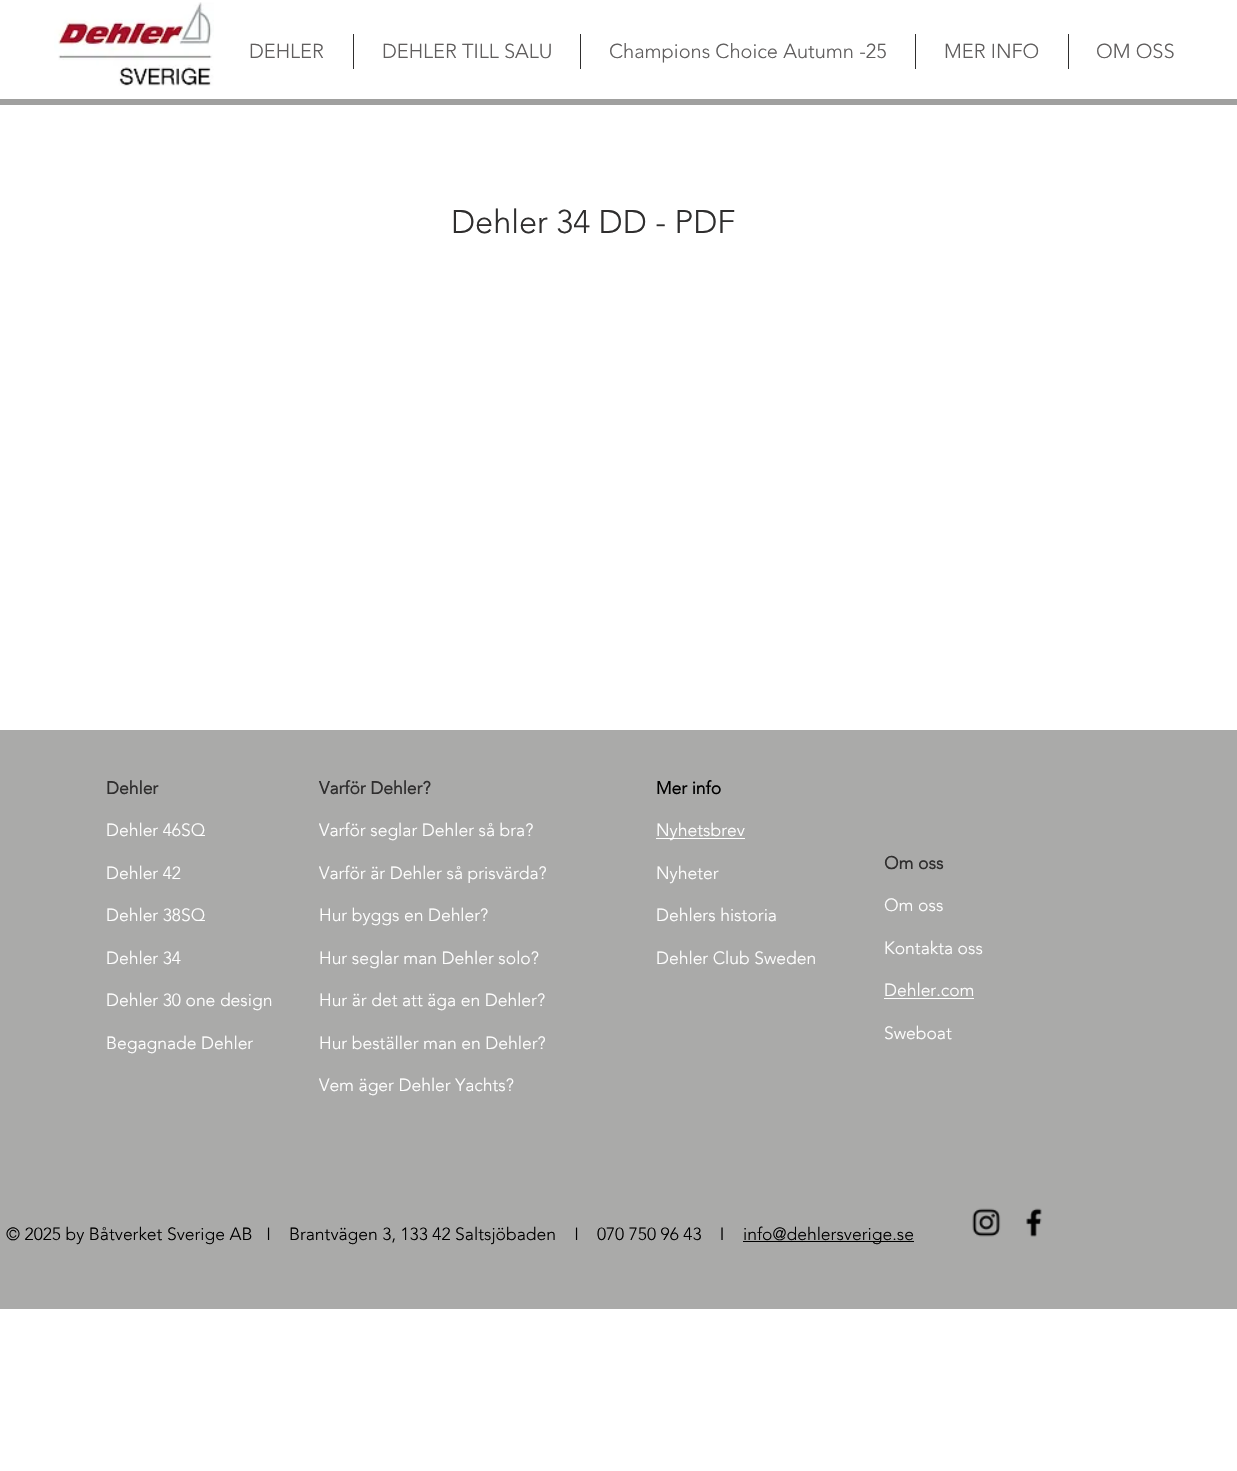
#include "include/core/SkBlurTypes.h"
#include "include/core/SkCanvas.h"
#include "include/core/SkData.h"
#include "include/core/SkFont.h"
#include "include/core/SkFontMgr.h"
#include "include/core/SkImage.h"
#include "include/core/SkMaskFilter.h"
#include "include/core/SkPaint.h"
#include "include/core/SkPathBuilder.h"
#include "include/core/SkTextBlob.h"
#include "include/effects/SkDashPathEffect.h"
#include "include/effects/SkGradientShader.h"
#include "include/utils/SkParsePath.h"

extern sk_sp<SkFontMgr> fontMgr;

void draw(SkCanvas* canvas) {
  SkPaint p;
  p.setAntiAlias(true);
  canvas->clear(SK_ColorWHITE);
  canvas->drawImageRect(SkImages::DeferredFromEncodedData(SkData::MakeFromFileName("images/1.png")), SkRect::MakeLTRB(54, 2, 214, 86), SkSamplingOptions());
  p.setColor(SkColorSetRGB(47, 46, 46));
  canvas->drawRect(SkRect::MakeLTRB(353, 34, 354, 69), p);
  canvas->drawRect(SkRect::MakeLTRB(580, 34, 581, 69), p);
  canvas->drawRect(SkRect::MakeLTRB(915, 34, 916, 69), p);
  canvas->drawRect(SkRect::MakeLTRB(1068, 34, 1069, 69), p);
  p.setColor(SkColorSetRGB(160, 160, 159));
  canvas->drawRect(SkRect::MakeLTRB(0, 99, 1237, 105), p);
  p.setColor(SkColorSetRGB(170, 170, 169));
  canvas->drawRect(SkRect::MakeLTRB(0, 730, 1237, 1309), p);
  p.setColor(SK_ColorWHITE);
  canvas->drawRect(SkRect::MakeLTRB(656, 838, 745, 839), p);
  canvas->drawRect(SkRect::MakeLTRB(884, 998, 974, 999), p);
  p.setColor(SK_ColorBLACK);
  canvas->drawRect(SkRect::MakeLTRB(743, 1241, 914, 1242), p);
  canvas->drawImageRect(SkImages::DeferredFromEncodedData(SkData::MakeFromFileName("images/2.png")), SkRect::MakeLTRB(972, 1208, 1001, 1237), SkSamplingOptions());
  canvas->drawImageRect(SkImages::DeferredFromEncodedData(SkData::MakeFromFileName("images/3.png")), SkRect::MakeLTRB(1026, 1208, 1042, 1237), SkSamplingOptions());
  SkFont font1(fontMgr->matchFamilyStyle("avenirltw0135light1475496", SkFontStyle(300, SkFontStyle::kNormal_Width, SkFontStyle::kUpright_Slant)), 20);
  font1.setSubpixel(true);
  p.setColor(SkColorSetRGB(96, 94, 94));
  canvas->drawString("DEHLER", 249, 58, font1, p);
  canvas->drawString("DEHLER TILL SALU", 382, 58, font1, p);
  canvas->drawString("Champions Choice Autumn -25", 609, 58, font1, p);
  canvas->drawString("MER INFO", 944, 58, font1, p);
  canvas->drawString("OM OSS", 1096, 58, font1, p);
  SkFont font2(fontMgr->matchFamilyStyle("avenirltw0135light1475496", SkFontStyle(300, SkFontStyle::kNormal_Width, SkFontStyle::kUpright_Slant)), 32.5f);
  font2.setSubpixel(true);
  p.setColor(SkColorSetRGB(47, 46, 46));
  canvas->drawString("Dehler 34 DD - PDF", 451, 233, font2, p);
  SkFont font3(fontMgr->matchFamilyStyle("avenirltw0135light1475496", SkFontStyle::Bold()), 17.5f);
  font3.setSubpixel(true);
  canvas->drawString("Dehler", 106, 794, font3, p);
  SkFont font4(fontMgr->matchFamilyStyle("avenirltw0135light1475496", SkFontStyle(300, SkFontStyle::kNormal_Width, SkFontStyle::kUpright_Slant)), 17.5f);
  font4.setSubpixel(true);
  p.setColor(SK_ColorWHITE);
  canvas->drawString("Dehler 46SQ", 106, 836, font4, p);
  canvas->drawString("Dehler 42", 106, 879, font4, p);
  canvas->drawString("Dehler 38SQ", 106, 921, font4, p);
  canvas->drawString("Dehler 34", 106, 964, font4, p);
  canvas->drawString("Dehler 30 one design", 106, 1006, font4, p);
  canvas->drawString("Begagnade Dehler", 106, 1049, font4, p);
  p.setColor(SkColorSetRGB(47, 46, 46));
  canvas->drawString("Varför Dehler?", 319, 794, font3, p);
  p.setColor(SK_ColorWHITE);
  canvas->drawString("Varför seglar Dehler så bra?", 319, 836, font4, p);
  canvas->drawString("Varför är Dehler så prisvärda?", 319, 879, font4, p);
  canvas->drawString("Hur byggs en Dehler?", 319, 921, font4, p);
  canvas->drawString("Hur seglar man Dehler solo?", 319, 964, font4, p);
  canvas->drawString("Hur är det att äga en Dehler?", 319, 1006, font4, p);
  canvas->drawString("Hur beställer man en Dehler?", 319, 1049, font4, p);
  canvas->drawString("Vem äger Dehler Yachts?", 319, 1091, font4, p);
  p.setColor(SK_ColorBLACK);
  canvas->drawString("Mer info", 656, 794, font3, p);
  p.setColor(SK_ColorWHITE);
  canvas->drawString("Nyhetsbrev", 656, 836, font4, p);
  canvas->drawString("Nyheter", 656, 879, font4, p);
  canvas->drawString("Dehlers historia", 656, 921, font4, p);
  canvas->drawString("Dehler Club Sweden", 656, 964, font4, p);
  p.setColor(SkColorSetRGB(47, 46, 46));
  canvas->drawString("Om oss", 884, 869, font3, p);
  p.setColor(SK_ColorWHITE);
  canvas->drawString("Om oss", 884, 911, font4, p);
  canvas->drawString("Kontakta oss", 884, 954, font4, p);
  canvas->drawString("Dehler.com", 884, 996, font4, p);
  canvas->drawString("Sweboat", 884, 1039, font4, p);
  p.setColor(SK_ColorBLACK);
  canvas->drawString("© 2025 by Båtverket Sverige AB   I    Brantvägen 3, 133 42 Saltsjöbaden    I    070 750 96 43    I", 6, 1240, font4, p);
  canvas->drawString("info@dehlersverige.se", 743, 1240, font4, p);
}
